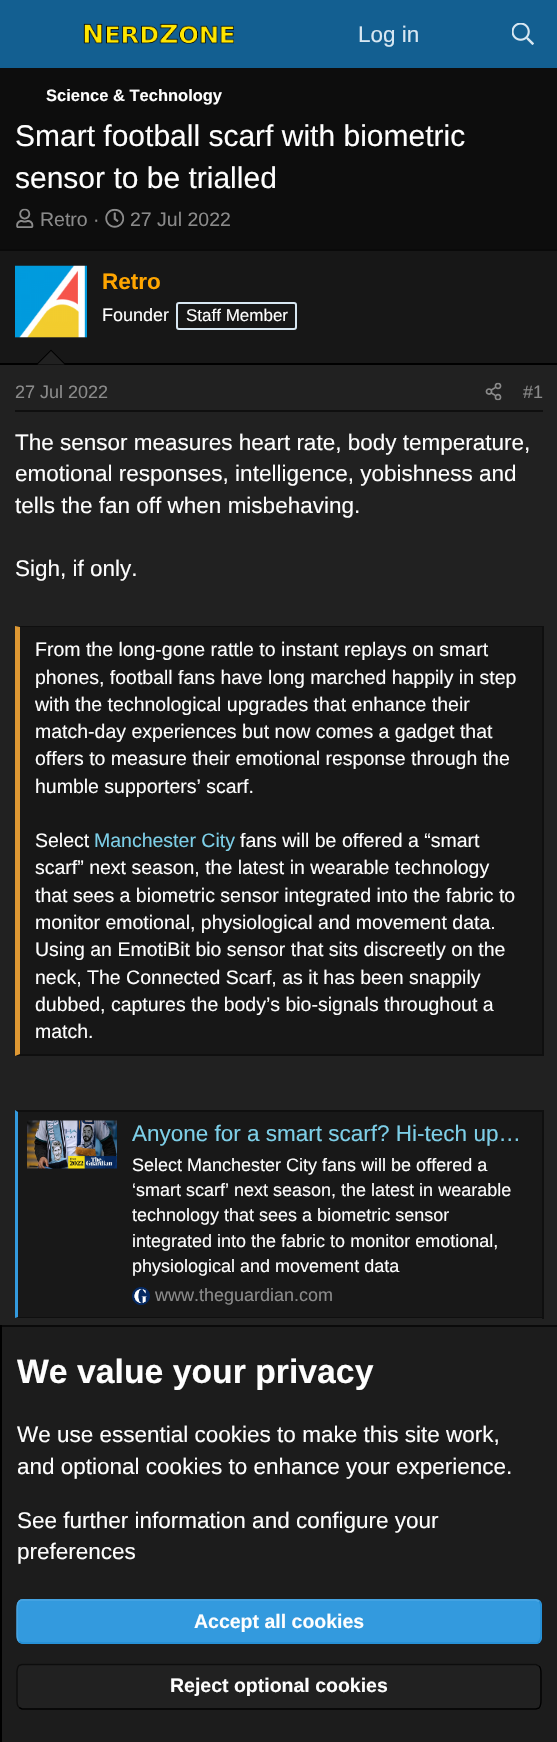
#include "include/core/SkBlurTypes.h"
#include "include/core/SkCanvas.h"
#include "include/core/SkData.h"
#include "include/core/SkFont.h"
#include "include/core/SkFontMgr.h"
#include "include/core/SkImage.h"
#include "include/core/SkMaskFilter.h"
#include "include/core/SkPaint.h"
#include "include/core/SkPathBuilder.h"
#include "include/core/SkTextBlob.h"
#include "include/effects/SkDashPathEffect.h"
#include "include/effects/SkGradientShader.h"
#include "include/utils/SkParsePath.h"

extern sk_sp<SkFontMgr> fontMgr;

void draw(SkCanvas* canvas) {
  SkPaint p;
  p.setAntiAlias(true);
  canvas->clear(SkColorSetRGB(13, 13, 13));
  p.setColor(SkColorSetRGB(19, 95, 145));
  canvas->drawRect(SkRect::MakeLTRB(0, 0, 557, 68), p);
  canvas->drawImageRect(SkImages::DeferredFromEncodedData(SkData::MakeFromFileName("images/1.png")), SkRect::MakeLTRB(83, 23, 234, 44), SkSamplingOptions());
  canvas->drawImageRect(SkImages::DeferredFromEncodedData(SkData::MakeFromFileName("images/2.png")), SkRect::MakeLTRB(512, 23, 534, 45), SkSamplingOptions());
  canvas->drawImageRect(SkImages::DeferredFromEncodedData(SkData::MakeFromFileName("images/3.png")), SkRect::MakeLTRB(16, 208, 34, 228), SkSamplingOptions());
  canvas->drawImageRect(SkImages::DeferredFromEncodedData(SkData::MakeFromFileName("images/4.png")), SkRect::MakeLTRB(105, 208, 125, 228), SkSamplingOptions());
  p.setColor(SkColorSetRGB(33, 33, 33));
  canvas->drawRect(SkRect::MakeLTRB(0, 365, 557, 1325), p);
  p.setColor(SkColorSetRGB(10, 10, 10));
  canvas->drawRect(SkRect::MakeLTRB(0, 249, 557, 251), p);
  p.setColor(SkColorSetRGB(23, 23, 23));
  canvas->drawRect(SkRect::MakeLTRB(0, 251, 557, 363), p);
  p.setColor(SK_ColorBLACK);
  canvas->drawRect(SkRect::MakeLTRB(0, 363, 557, 365), p);
  p.setColor(SkColorSetRGB(33, 33, 33));
  canvas->drawRect(SkRect::MakeLTRB(15, 337, 87, 338), p);
  canvas->drawImageRect(SkImages::DeferredFromEncodedData(SkData::MakeFromFileName("images/5.png")), SkRect::MakeLTRB(15, 265, 87, 338), SkSamplingOptions());
  p.setStyle(SkPaint::kStroke_Style);
  p.setStrokeWidth(2);
  p.setColor(SkColorSetRGB(216, 231, 242));
  canvas->drawRoundRect(SkRect::MakeLTRB(177, 303, 296, 329), 2, 2, p);
  p.setStyle(SkPaint::kFill_Style);
  p.setColor(SK_ColorBLACK);
  canvas->drawPath(SkPathBuilder().moveTo(66, 364.5f).lineTo(36, 364.5f).lineTo(51, 349.5f).close().detach(), p);
  p.setColor(SkColorSetRGB(33, 33, 33));
  canvas->drawPath(SkPathBuilder().moveTo(64.5f, 364.5f).lineTo(37.5f, 364.5f).lineTo(51, 351).close().detach(), p);
  p.setColor(SkColorSetRGB(15, 15, 15));
  canvas->drawRect(SkRect::MakeLTRB(15, 410, 543, 412), p);
  canvas->drawImageRect(SkImages::DeferredFromEncodedData(SkData::MakeFromFileName("images/6.png")), SkRect::MakeLTRB(485, 382, 502, 401), SkSamplingOptions());
  p.setColor(SkColorSetRGB(23, 23, 23));
  canvas->drawRect(SkRect::MakeLTRB(20, 627, 542, 1054), p);
  p.setColor(SkColorSetRGB(15, 15, 15));
  canvas->drawPath(SkPathBuilder().moveTo(15, 626).lineTo(543, 626).lineTo(542, 627).lineTo(20, 627).close().detach(), p);
  canvas->drawRect(SkRect::MakeLTRB(542, 626, 544, 1056), p);
  canvas->drawPath(SkPathBuilder().moveTo(543, 1056).lineTo(15, 1056).lineTo(20, 1054).lineTo(542, 1054).close().detach(), p);
  p.setColor(SkColorSetRGB(222, 152, 51));
  canvas->drawPath(SkPathBuilder().moveTo(15, 1056).lineTo(15, 626).lineTo(20, 627).lineTo(20, 1054).close().detach(), p);
  p.setColor(SkColorSetRGB(24, 24, 24));
  canvas->drawRect(SkRect::MakeLTRB(18, 1112, 542, 1317), p);
  p.setColor(SkColorSetRGB(15, 15, 15));
  canvas->drawPath(SkPathBuilder().moveTo(15, 1110).lineTo(543, 1110).lineTo(542, 1112).lineTo(18, 1112).close().detach(), p);
  canvas->drawRect(SkRect::MakeLTRB(542, 1110, 544, 1319), p);
  canvas->drawPath(SkPathBuilder().moveTo(543, 1318).lineTo(15, 1318).lineTo(18, 1317).lineTo(542, 1317).close().detach(), p);
  p.setColor(SkColorSetRGB(51, 154, 222));
  canvas->drawPath(SkPathBuilder().moveTo(15, 1318).lineTo(15, 1110).lineTo(18, 1112).lineTo(18, 1317).close().detach(), p);
  canvas->drawImageRect(SkImages::DeferredFromEncodedData(SkData::MakeFromFileName("images/7.png")), SkRect::MakeLTRB(27, 1120, 117, 1169), SkSamplingOptions());
  canvas->drawImageRect(SkImages::DeferredFromEncodedData(SkData::MakeFromFileName("images/8.png")), SkRect::MakeLTRB(132, 1287, 150, 1305), SkSamplingOptions());
  p.setColor(SkColorSetRGB(28, 28, 28));
  canvas->drawRect(SkRect::MakeLTRB(2, 1327, 557, 1742), p);
  p.setColor(SkColorSetRGB(10, 10, 10));
  canvas->drawRect(SkRect::MakeLTRB(0, 1325, 557, 1327), p);
  p.setColor(SK_ColorBLACK);
  canvas->drawRect(SkRect::MakeLTRB(0, 1325, 2, 1742), p);
  p.setColor(SkColorSetRGB(51, 154, 222));
  canvas->drawRoundRect(SkRect::MakeLTRB(17, 1599, 542, 1644), 6, 6, p);
  p.setStyle(SkPaint::kStroke_Style);
  p.setStrokeWidth(1.5f);
  p.setColor(SkColorSetRGB(34, 142, 213));
  canvas->drawPath(SkPathBuilder().moveTo(539, 1601.5f).cubicTo(541.5f, 1603.5f, 541, 1607.5f, 541, 1610.5f).lineTo(541, 1632.5f).cubicTo(541, 1636, 541.5f, 1641.5f, 537, 1643).lineTo(22, 1643).lineTo(19, 1641.5f).detach(), p);
  p.setColor(SkColorSetRGB(73, 165, 226));
  canvas->drawPath(SkPathBuilder().moveTo(19, 1641.5f).cubicTo(16.5f, 1639.5f, 17, 1635.5f, 17, 1632.5f).lineTo(17, 1610.5f).cubicTo(17, 1607, 16.5f, 1601.5f, 21, 1600).lineTo(536, 1600).lineTo(539, 1601.5f).detach(), p);
  p.setStyle(SkPaint::kFill_Style);
  p.setColor(SkColorSetRGB(33, 33, 33));
  canvas->drawRoundRect(SkRect::MakeLTRB(17, 1664, 542, 1710), 6, 6, p);
  p.setStyle(SkPaint::kStroke_Style);
  p.setColor(SK_ColorBLACK);
  canvas->drawPath(SkPathBuilder().moveTo(539, 1666).cubicTo(541.5f, 1668, 541, 1672.5f, 541, 1675).lineTo(541, 1698).cubicTo(541, 1701.5f, 541.5f, 1705.5f, 539, 1708).lineTo(536, 1709).lineTo(22, 1709).lineTo(19, 1707.5f).detach(), p);
  p.setColor(SkColorSetRGB(13, 13, 13));
  canvas->drawPath(SkPathBuilder().moveTo(19, 1707.5f).cubicTo(16.5f, 1705.5f, 17, 1701, 17, 1698).lineTo(17, 1675).cubicTo(17, 1672, 16.5f, 1668, 19, 1665.5f).lineTo(22, 1664.5f).lineTo(536, 1664.5f).lineTo(539, 1666).detach(), p);
  SkFont font1(fontMgr->matchFamilyStyle("Liberation Sans", SkFontStyle::Normal()), 22.5f);
  font1.setSubpixel(true);
  p.setStyle(SkPaint::kFill_Style);
  p.setColor(SkColorSetRGB(216, 231, 242));
  canvas->drawString("Log in", 358, 42, font1, p);
  SkFont font2(fontMgr->matchFamilyStyle("Liberation Sans", SkFontStyle::Bold()), 16.5f);
  font2.setSubpixel(true);
  p.setColor(SkColorSetRGB(254, 254, 254));
  canvas->drawString("Science & Technology", 46, 101, font2, p);
  SkFont font3(fontMgr->matchFamilyStyle("Liberation Sans", SkFontStyle::Normal()), 30);
  font3.setSubpixel(true);
  canvas->drawString("Smart football scarf with biometric", 15, 146, font3, p);
  canvas->drawString("sensor to be trialled", 15, 188, font3, p);
  SkFont font4(fontMgr->matchFamilyStyle("Liberation Sans", SkFontStyle::Normal()), 19.5f);
  font4.setSubpixel(true);
  p.setColor(SkColorSetRGB(138, 138, 138));
  canvas->drawString("Retro ·", 40, 226, font4, p);
  canvas->drawString("27 Jul 2022", 130, 226, font4, p);
  SkFont font5(fontMgr->matchFamilyStyle("Liberation Sans", SkFontStyle::Bold()), 22.5f);
  font5.setSubpixel(true);
  p.setColor(SkColorSetRGB(255, 165, 0));
  canvas->drawString("Retro", 102, 289, font5, p);
  SkFont font6(fontMgr->matchFamilyStyle("Liberation Sans", SkFontStyle::Normal()), 18);
  font6.setSubpixel(true);
  p.setColor(SkColorSetRGB(254, 254, 254));
  canvas->drawString("Founder", 102, 321, font6, p);
  SkFont font7(fontMgr->matchFamilyStyle("Liberation Sans", SkFontStyle::Normal()), 17);
  font7.setSubpixel(true);
  canvas->drawString("Staff Member", 186, 321, font7, p);
  p.setColor(SkColorSetRGB(138, 138, 138));
  canvas->drawString("27 Jul 2022", 15, 398, font6, p);
  canvas->drawString("#1", 523, 398, font6, p);
  p.setColor(SkColorSetRGB(254, 254, 254));
  canvas->drawString("The sensor measures heart rate, body temperature,", 15, 450, font1, p);
  canvas->drawString("emotional responses, intelligence, yobishness and", 15, 481, font1, p);
  canvas->drawString("tells the fan off when misbehaving.", 15, 513, font1, p);
  canvas->drawString("Sigh, if only.", 15, 576, font1, p);
  canvas->drawString("From the long-gone rattle to instant replays on smart", 35, 656, font4, p);
  canvas->drawString("phones, football fans have long marched happily in step", 35, 684, font4, p);
  canvas->drawString("with the technological upgrades that enhance their", 35, 711, font4, p);
  canvas->drawString("match-day experiences but now comes a gadget that", 35, 738, font4, p);
  canvas->drawString("offers to measure their emotional response through the", 35, 765, font4, p);
  canvas->drawString("humble supporters’ scarf.", 35, 793, font4, p);
  canvas->drawString("Select", 35, 847, font4, p);
  p.setColor(SkColorSetRGB(125, 207, 232));
  canvas->drawString("Manchester City", 94, 847, font4, p);
  p.setColor(SkColorSetRGB(254, 254, 254));
  canvas->drawString("fans will be offered a “smart", 240, 847, font4, p);
  canvas->drawString("scarf” next season, the latest in wearable technology", 35, 874, font4, p);
  canvas->drawString("that sees a biometric sensor integrated into the fabric to", 35, 902, font4, p);
  canvas->drawString("monitor emotional, physiological and movement data.", 35, 929, font4, p);
  canvas->drawString("Using an EmotiBit bio sensor that sits discreetly on the", 35, 956, font4, p);
  canvas->drawString("neck, The Connected Scarf, as it has been snappily", 35, 984, font4, p);
  canvas->drawString("dubbed, captures the body’s bio-signals throughout a", 35, 1011, font4, p);
  canvas->drawString("match.", 35, 1038, font4, p);
  p.setColor(SkColorSetRGB(125, 207, 232));
  canvas->drawString("Anyone for a smart scarf? Hi-tech up…", 132, 1141, font1, p);
  p.setColor(SkColorSetRGB(254, 254, 254));
  canvas->drawString("Select Manchester City fans will be offered a", 132, 1171, font6, p);
  canvas->drawString("‘smart scarf’ next season, the latest in wearable", 132, 1196, font6, p);
  canvas->drawString("technology that sees a biometric sensor", 132, 1221, font6, p);
  canvas->drawString("integrated into the fabric to monitor emotional,", 132, 1247, font6, p);
  canvas->drawString("physiological and movement data", 132, 1272, font6, p);
  p.setColor(SkColorSetRGB(138, 138, 138));
  canvas->drawString("www.theguardian.com", 155, 1301, font6, p);
  SkFont font8(fontMgr->matchFamilyStyle("Liberation Sans", SkFontStyle::Bold()), 33.75f);
  font8.setSubpixel(true);
  p.setColor(SkColorSetRGB(254, 254, 254));
  canvas->drawString("We value your privacy", 17, 1383, font8, p);
  canvas->drawString("We use essential cookies to make this site work,", 17, 1442, font1, p);
  canvas->drawString("and optional cookies to enhance your experience.", 17, 1474, font1, p);
  canvas->drawString("See further information and configure your", 17, 1528, font1, p);
  canvas->drawString("preferences", 17, 1559, font1, p);
  SkFont font9(fontMgr->matchFamilyStyle("Liberation Sans", SkFontStyle::Bold()), 19.5f);
  font9.setSubpixel(true);
  canvas->drawString("Accept all cookies", 194, 1628, font9, p);
  canvas->drawString("Reject optional cookies", 170, 1692, font9, p);
}
